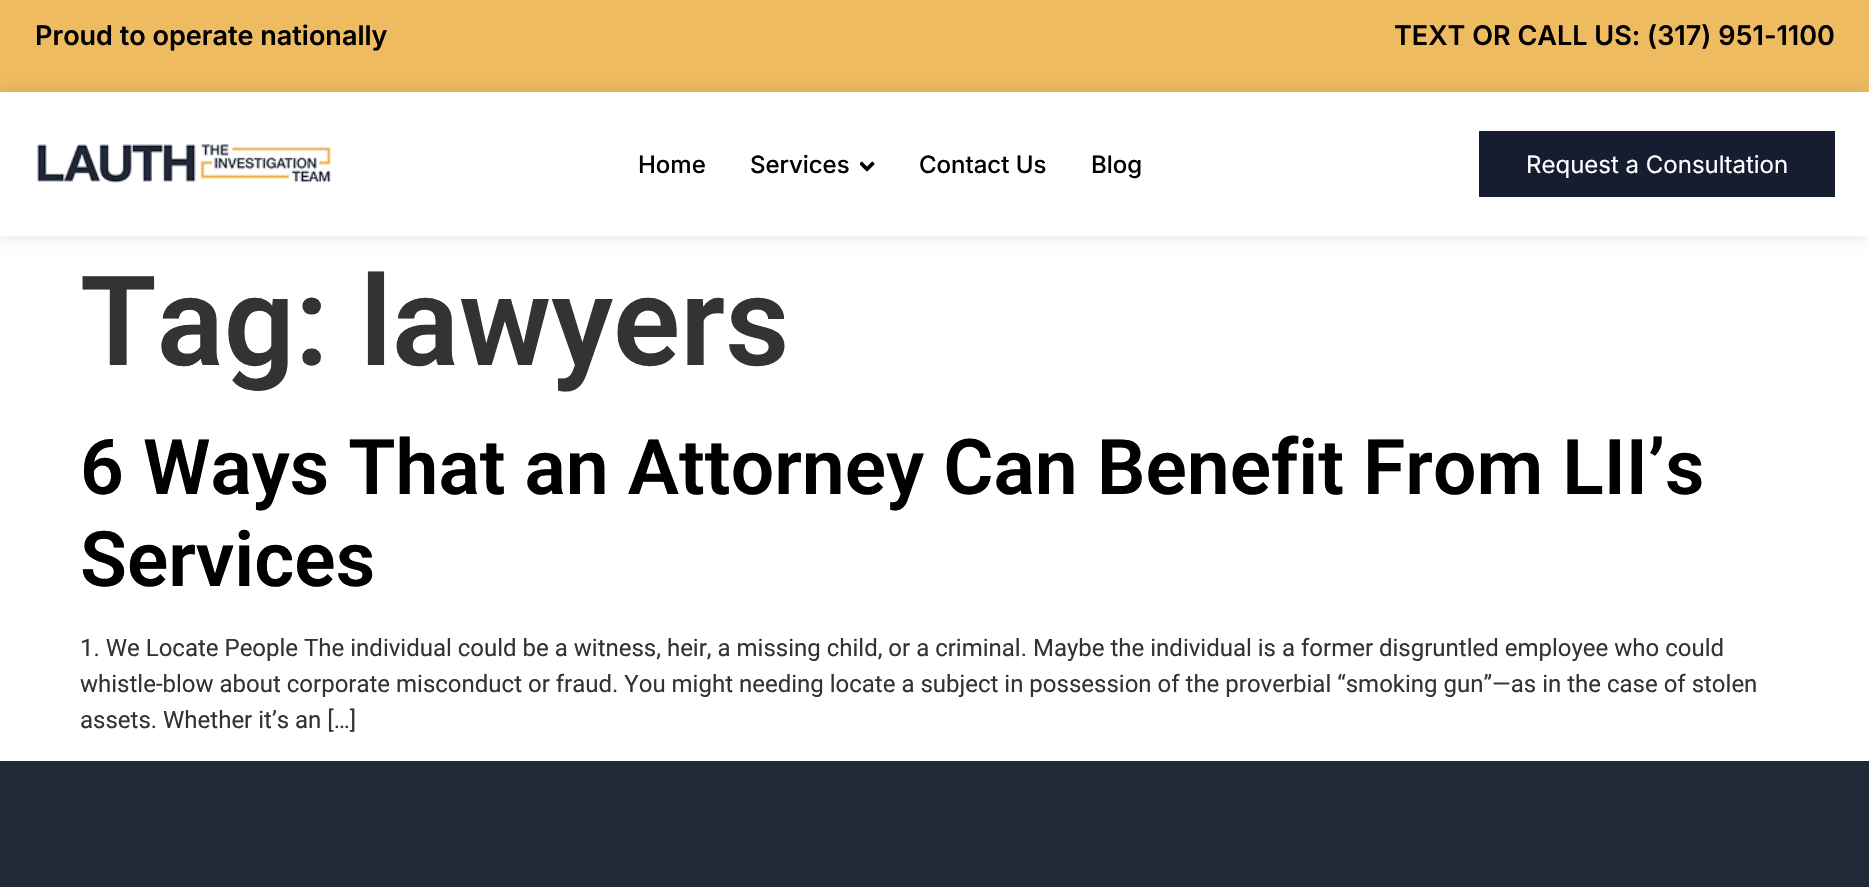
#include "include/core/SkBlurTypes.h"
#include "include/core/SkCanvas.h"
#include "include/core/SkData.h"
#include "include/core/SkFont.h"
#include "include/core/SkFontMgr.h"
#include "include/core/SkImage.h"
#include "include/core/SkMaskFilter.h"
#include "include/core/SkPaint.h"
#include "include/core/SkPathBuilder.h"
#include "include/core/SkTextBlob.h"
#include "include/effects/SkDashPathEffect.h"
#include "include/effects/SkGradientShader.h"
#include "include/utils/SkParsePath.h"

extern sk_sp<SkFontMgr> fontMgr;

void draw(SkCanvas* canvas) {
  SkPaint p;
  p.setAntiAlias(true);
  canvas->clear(SK_ColorWHITE);
  p.setColor(SkColorSetRGB(238, 187, 96));
  canvas->drawRect(SkRect::MakeLTRB(0, 0, 1869, 92), p);
  p.setColor(SkColorSetARGB(31, 0, 0, 0));
  p.setMaskFilter(SkMaskFilter::MakeBlur(kNormal_SkBlurStyle, 7.5f));
  canvas->drawRect(SkRect::MakeLTRB(0, 92, 1869, 236), p);
  p.setMaskFilter(nullptr);
  p.setColor(SK_ColorWHITE);
  canvas->drawRect(SkRect::MakeLTRB(0, 92, 1869, 236), p);
  canvas->drawImageRect(SkImages::DeferredFromEncodedData(SkData::MakeFromFileName("images/1.png")), SkRect::MakeLTRB(37, 144, 331, 183), SkSamplingOptions());
  canvas->drawImageRect(SkImages::DeferredFromEncodedData(SkData::MakeFromFileName("images/2.png")), SkRect::MakeLTRB(860, 161, 875, 172), SkSamplingOptions());
  p.setColor(SkColorSetRGB(22, 29, 48));
  canvas->drawRect(SkRect::MakeLTRB(1479, 131, 1835, 197), p);
  p.setColor(SkColorSetRGB(33, 40, 56));
  canvas->drawRect(SkRect::MakeLTRB(0, 761, 1869, 887), p);
  SkFont font1(fontMgr->matchFamilyStyle("Inter", SkFontStyle(600, SkFontStyle::kNormal_Width, SkFontStyle::kUpright_Slant)), 27);
  font1.setSubpixel(true);
  p.setColor(SK_ColorBLACK);
  canvas->drawString("Proud to operate nationally", 35, 45, font1, p);
  canvas->drawString("TEXT OR CALL US: (317) 951-1100", 1394, 45, font1, p);
  SkFont font2(fontMgr->matchFamilyStyle("Inter", SkFontStyle(500, SkFontStyle::kNormal_Width, SkFontStyle::kUpright_Slant)), 24);
  font2.setSubpixel(true);
  canvas->drawString("Home", 638, 173, font2, p);
  canvas->drawString("Services", 750, 173, font2, p);
  canvas->drawString("Contact Us", 919, 173, font2, p);
  canvas->drawString("Blog", 1091, 173, font2, p);
  SkFont font3(fontMgr->matchFamilyStyle("Inter", SkFontStyle::Normal()), 24);
  font3.setSubpixel(true);
  p.setColor(SK_ColorWHITE);
  canvas->drawString("Request a Consultation", 1526, 173, font3, p);
  SkFont font4(fontMgr->matchFamilyStyle("Roboto", SkFontStyle(600, SkFontStyle::kNormal_Width, SkFontStyle::kUpright_Slant)), 124.75f);
  font4.setSubpixel(true);
  p.setColor(SkColorSetRGB(51, 51, 51));
  canvas->drawString("Tag: lawyers", 80, 365, font4, p);
  SkFont font5(fontMgr->matchFamilyStyle("Roboto", SkFontStyle(600, SkFontStyle::kNormal_Width, SkFontStyle::kUpright_Slant)), 76.8f);
  font5.setSubpixel(true);
  p.setColor(SK_ColorBLACK);
  canvas->drawString("6 Ways That an Attorney Can Benefit From LII’s", 80, 494, font5, p);
  canvas->drawString("Services", 80, 586, font5, p);
  SkFont font6(fontMgr->matchFamilyStyle("Roboto", SkFontStyle::Normal()), 24);
  font6.setSubpixel(true);
  p.setColor(SkColorSetRGB(51, 51, 51));
  canvas->drawString("1. We Locate People The individual could be a witness, heir, a missing child, or a criminal. Maybe the individual is a former disgruntled employee who could", 80, 656, font6, p);
  canvas->drawString("whistle-blow about corporate misconduct or fraud. You might needing locate a subject in possession of the proverbial “smoking gun”—as in the case of stolen", 80, 692, font6, p);
  canvas->drawString("assets. Whether it’s an […]", 80, 728, font6, p);
}
